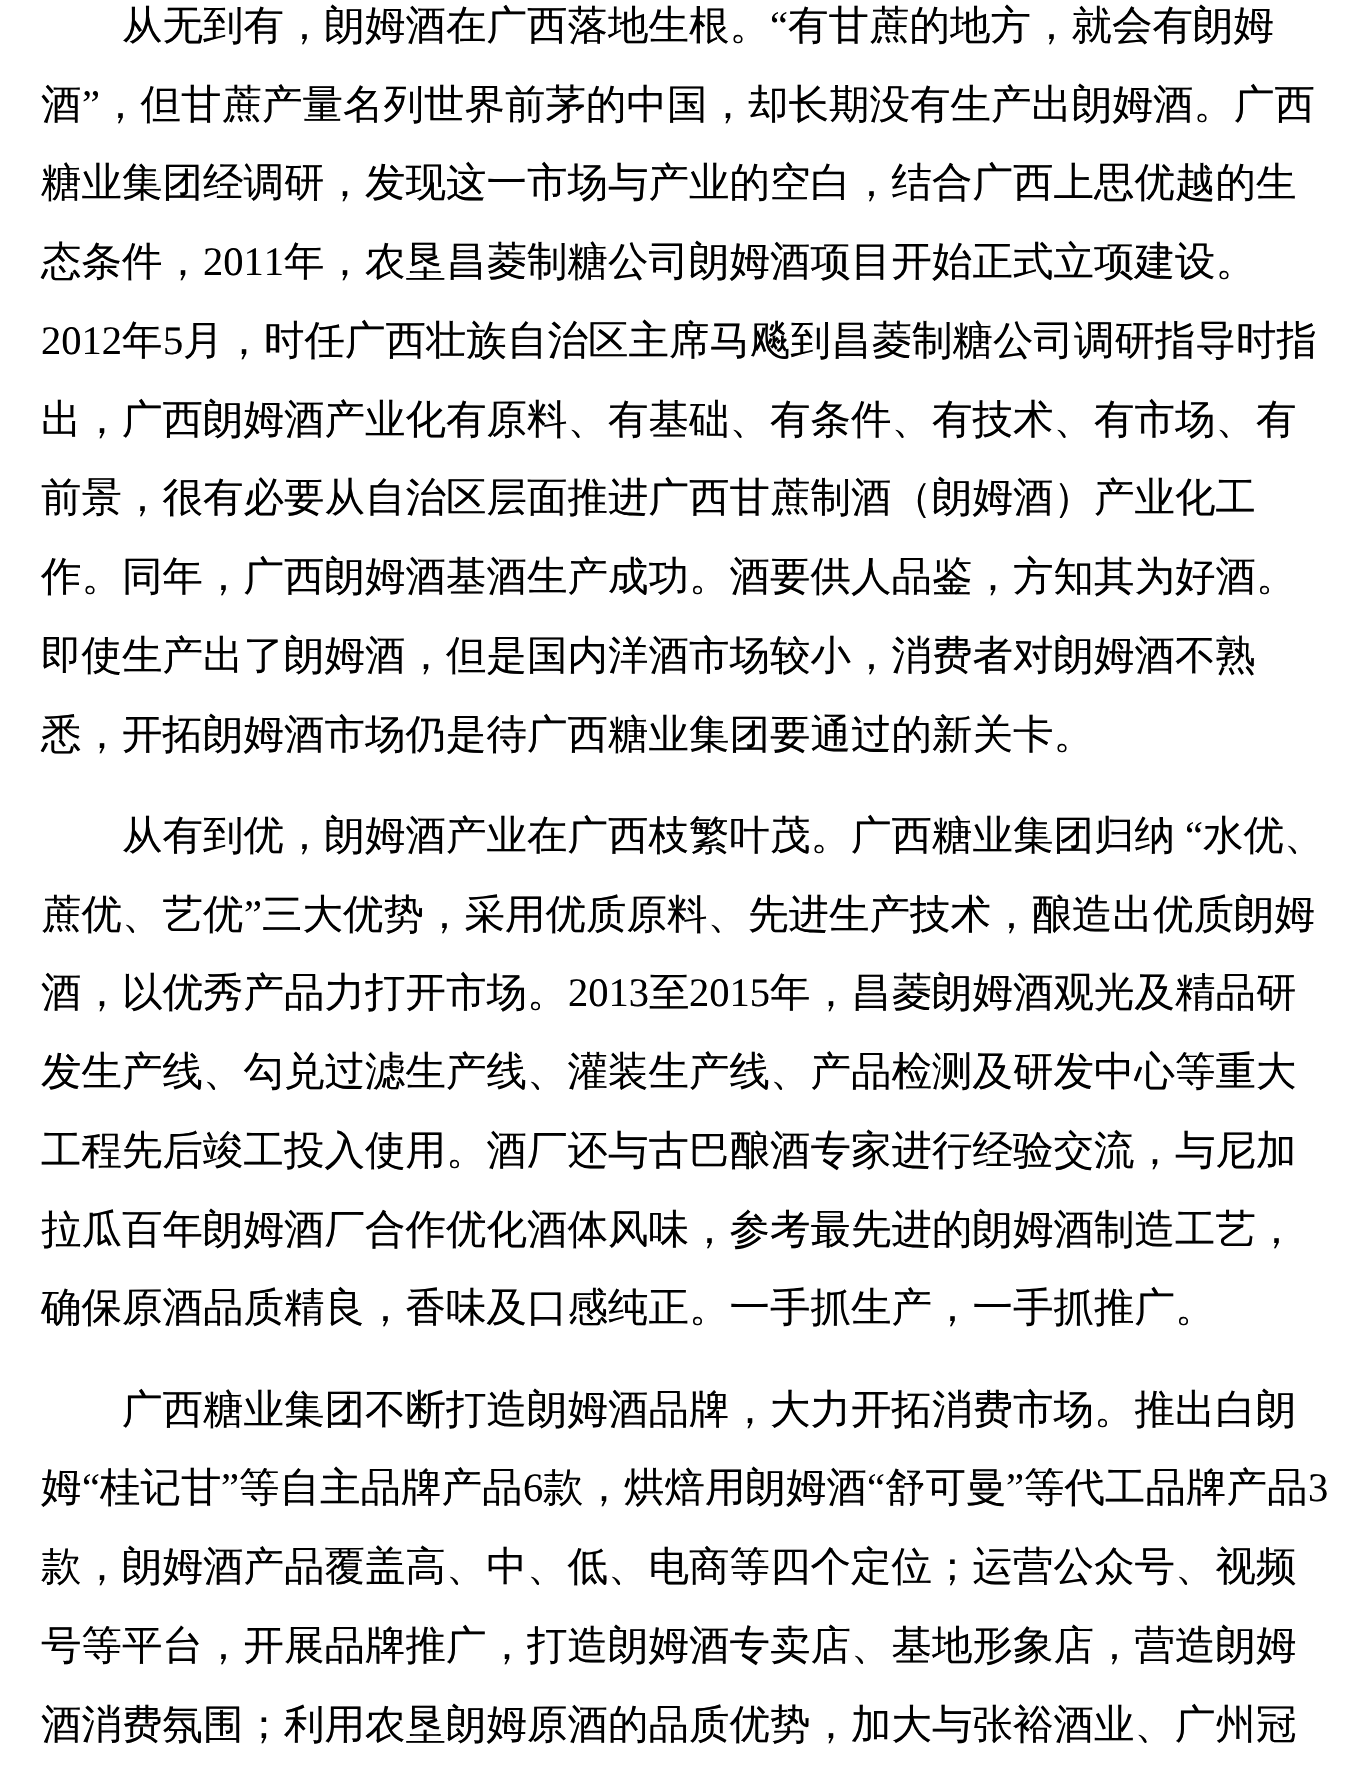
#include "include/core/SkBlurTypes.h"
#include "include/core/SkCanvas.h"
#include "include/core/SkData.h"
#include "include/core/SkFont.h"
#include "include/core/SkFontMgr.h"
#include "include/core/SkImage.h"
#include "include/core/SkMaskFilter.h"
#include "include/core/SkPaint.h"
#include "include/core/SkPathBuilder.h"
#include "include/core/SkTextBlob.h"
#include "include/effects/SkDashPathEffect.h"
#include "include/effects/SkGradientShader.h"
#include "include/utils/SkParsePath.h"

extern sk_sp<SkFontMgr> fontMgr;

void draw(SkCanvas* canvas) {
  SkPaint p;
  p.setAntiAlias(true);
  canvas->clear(SK_ColorWHITE);
  SkFont font1(fontMgr->matchFamilyStyle("WenQuanYi Zen Hei", SkFontStyle(500, SkFontStyle::kNormal_Width, SkFontStyle::kUpright_Slant)), 40.5f);
  font1.setSubpixel(true);
  p.setColor(SK_ColorBLACK);
  canvas->drawString("从无到有，朗姆酒在广西落地生根。", 122, 39, font1, p);
  SkFont font2(fontMgr->matchFamilyStyle("Liberation Serif", SkFontStyle::Normal()), 40.5f);
  font2.setSubpixel(true);
  canvas->drawString("“", 770, 39, font2, p);
  canvas->drawString("有甘蔗的地方，就会有朗姆", 788, 39, font1, p);
  canvas->drawString("酒", 41, 118, font1, p);
  canvas->drawString("”", 82, 118, font2, p);
  canvas->drawString("，但甘蔗产量名列世界前茅的中国，却长期没有生产出朗姆酒。广西", 100, 118, font1, p);
  canvas->drawString("糖业集团经调研，发现这一市场与产业的空白，结合广西上思优越的生", 41, 196, font1, p);
  canvas->drawString("态条件，", 41, 275, font1, p);
  canvas->drawString("2011", 203, 275, font2, p);
  canvas->drawString("年，农垦昌菱制糖公司朗姆酒项目开始正式立项建设。", 284, 275, font1, p);
  canvas->drawString("2012", 41, 354, font2, p);
  canvas->drawString("年", 122, 354, font1, p);
  canvas->drawString("5", 163, 354, font2, p);
  canvas->drawString("月，时任广西壮族自治区主席马飚到昌菱制糖公司调研指导时指", 183, 354, font1, p);
  canvas->drawString("出，广西朗姆酒产业化有原料、有基础、有条件、有技术、有市场、有", 41, 433, font1, p);
  canvas->drawString("前景，很有必要从自治区层面推进广西甘蔗制酒（朗姆酒）产业化工", 41, 511, font1, p);
  canvas->drawString("作。同年，广西朗姆酒基酒生产成功。酒要供人品鉴，方知其为好酒。", 41, 590, font1, p);
  canvas->drawString("即使生产出了朗姆酒，但是国内洋酒市场较小，消费者对朗姆酒不熟", 41, 669, font1, p);
  canvas->drawString("悉，开拓朗姆酒市场仍是待广西糖业集团要通过的新关卡。", 41, 748, font1, p);
  canvas->drawString("从有到优，朗姆酒产业在广西枝繁叶茂。广西糖业集团归纳", 122, 849, font1, p);
  canvas->drawString("“", 1185, 849, font2, p);
  canvas->drawString("水优、", 1203, 849, font1, p);
  canvas->drawString("蔗优、艺优", 41, 928, font1, p);
  canvas->drawString("”", 244, 928, font2, p);
  canvas->drawString("三大优势，采用优质原料、先进生产技术，酿造出优质朗姆", 262, 928, font1, p);
  canvas->drawString("酒，以优秀产品力打开市场。", 41, 1006, font1, p);
  canvas->drawString("2013", 568, 1006, font2, p);
  canvas->drawString("至", 649, 1006, font1, p);
  canvas->drawString("2015", 689, 1006, font2, p);
  canvas->drawString("年，昌菱朗姆酒观光及精品研", 770, 1006, font1, p);
  canvas->drawString("发生产线、勾兑过滤生产线、灌装生产线、产品检测及研发中心等重大", 41, 1085, font1, p);
  canvas->drawString("工程先后竣工投入使用。酒厂还与古巴酿酒专家进行经验交流，与尼加", 41, 1164, font1, p);
  canvas->drawString("拉瓜百年朗姆酒厂合作优化酒体风味，参考最先进的朗姆酒制造工艺，", 41, 1243, font1, p);
  canvas->drawString("确保原酒品质精良，香味及口感纯正。一手抓生产，一手抓推广。", 41, 1321, font1, p);
  canvas->drawString("广西糖业集团不断打造朗姆酒品牌，大力开拓消费市场。推出白朗", 122, 1423, font1, p);
  canvas->drawString("姆", 41, 1501, font1, p);
  canvas->drawString("“", 82, 1501, font2, p);
  canvas->drawString("桂记甘", 100, 1501, font1, p);
  canvas->drawString("”", 221, 1501, font2, p);
  canvas->drawString("等自主品牌产品", 239, 1501, font1, p);
  canvas->drawString("6", 523, 1501, font2, p);
  canvas->drawString("款，烘焙用朗姆酒", 543, 1501, font1, p);
  canvas->drawString("“", 867, 1501, font2, p);
  canvas->drawString("舒可曼", 885, 1501, font1, p);
  canvas->drawString("”", 1006, 1501, font2, p);
  canvas->drawString("等代工品牌产品", 1024, 1501, font1, p);
  canvas->drawString("3", 1308, 1501, font2, p);
  canvas->drawString("款，朗姆酒产品覆盖高、中、低、电商等四个定位；运营公众号、视频", 41, 1580, font1, p);
  canvas->drawString("号等平台，开展品牌推广，打造朗姆酒专卖店、基地形象店，营造朗姆", 41, 1659, font1, p);
  canvas->drawString("酒消费氛围；利用农垦朗姆原酒的品质优势，加大与张裕酒业、广州冠", 41, 1738, font1, p);
}
